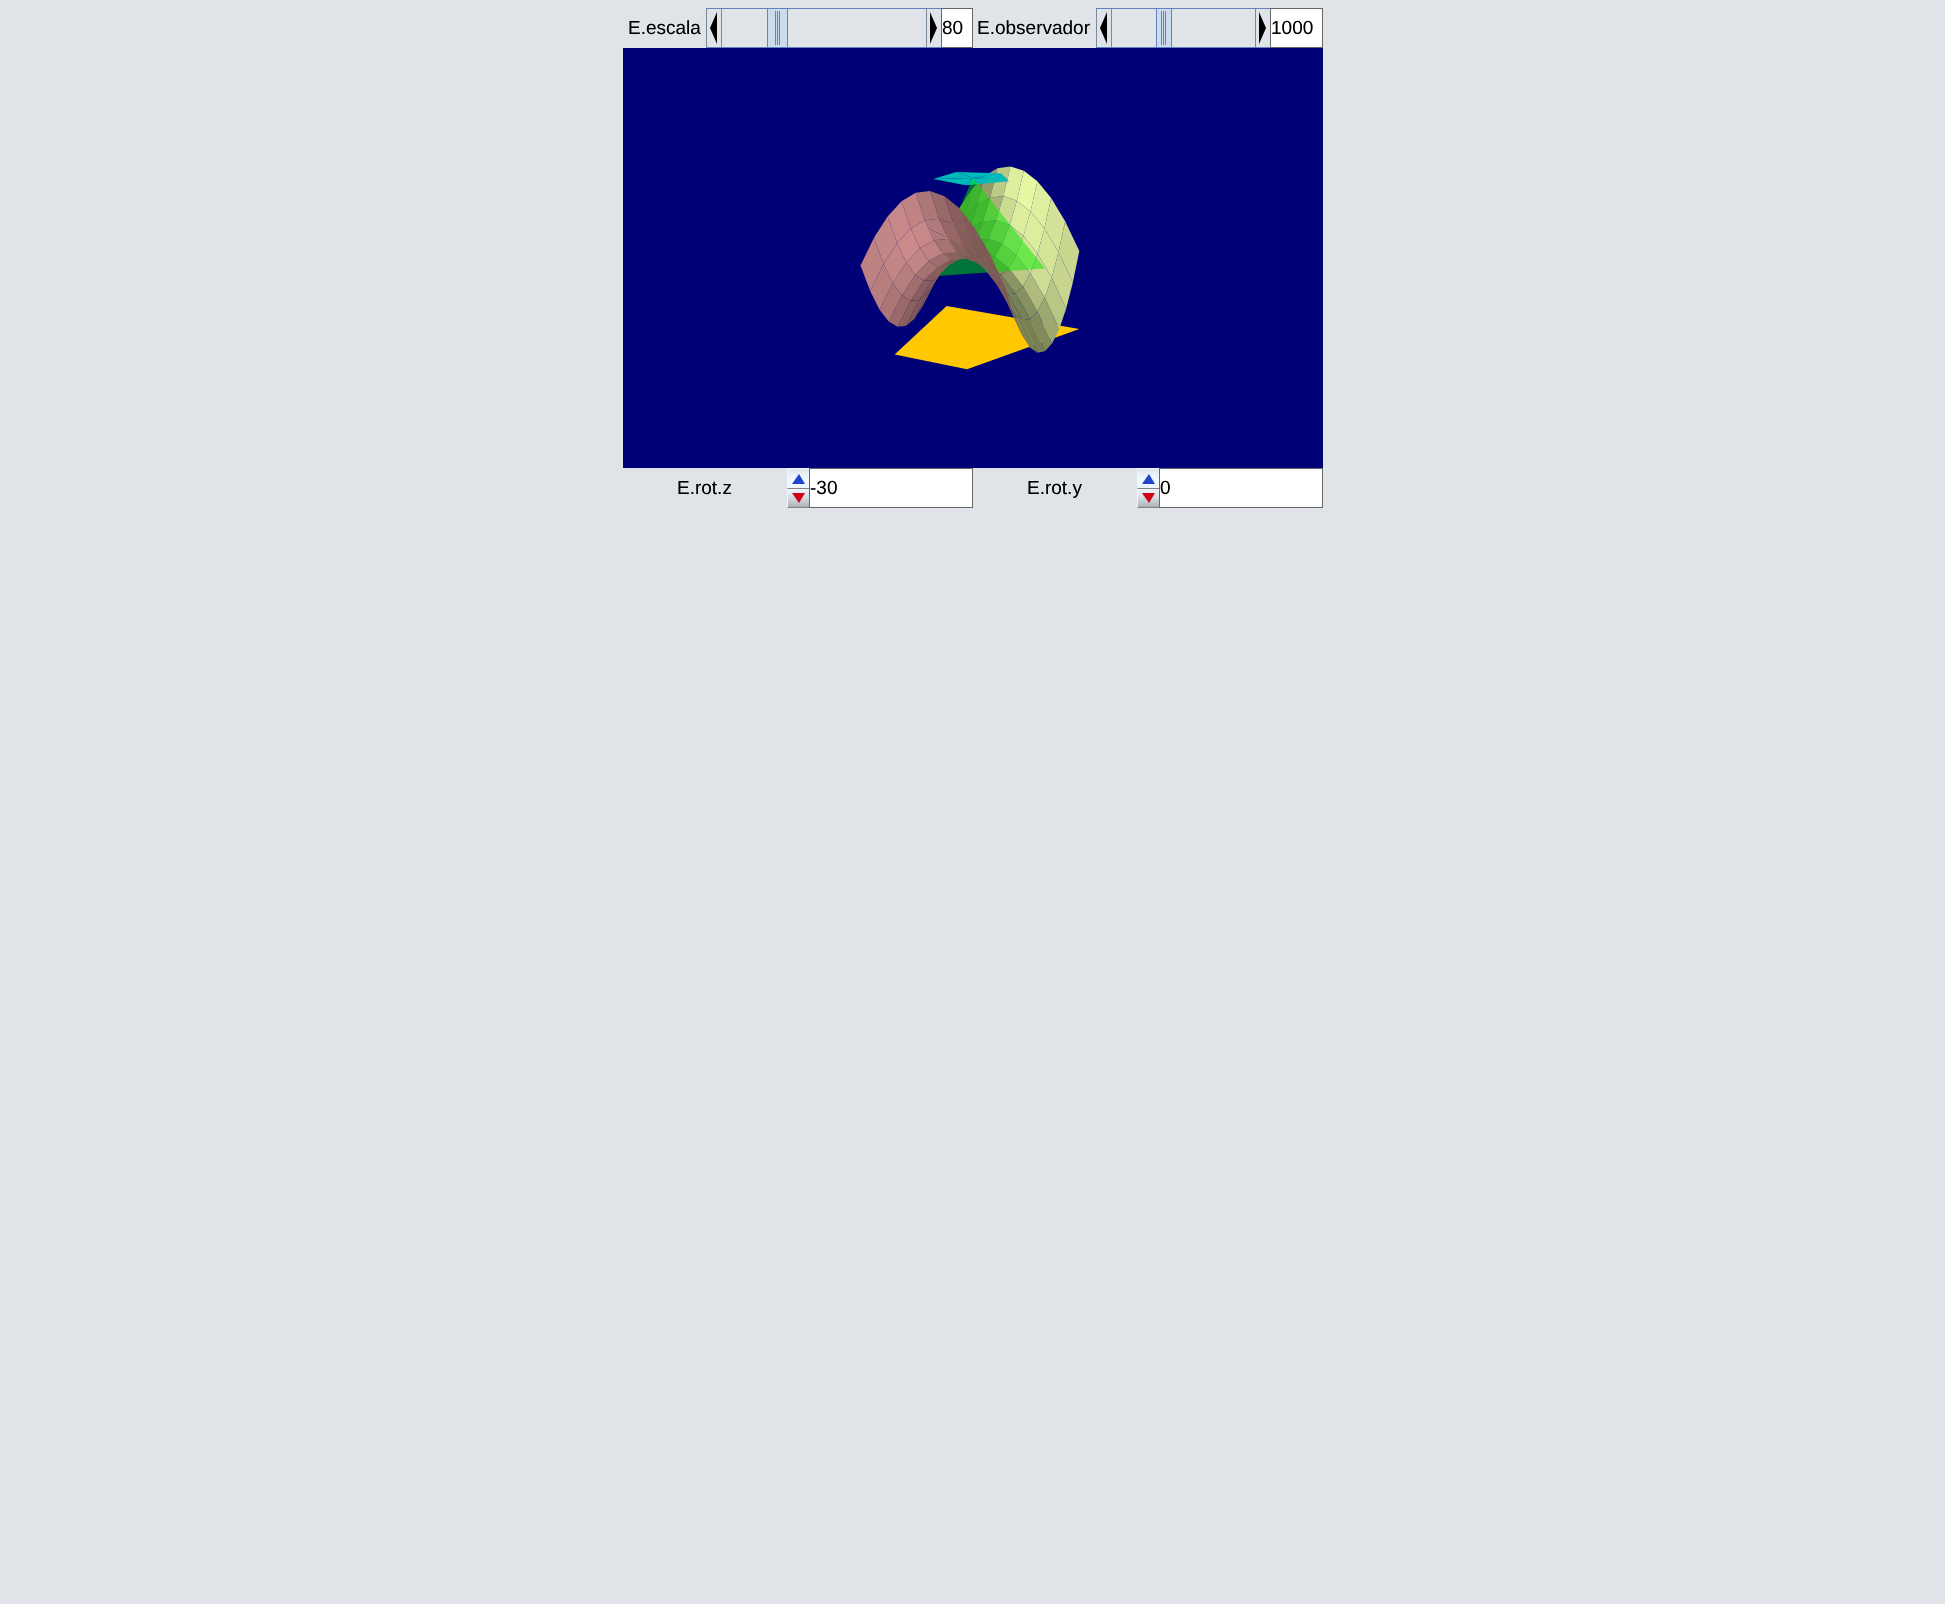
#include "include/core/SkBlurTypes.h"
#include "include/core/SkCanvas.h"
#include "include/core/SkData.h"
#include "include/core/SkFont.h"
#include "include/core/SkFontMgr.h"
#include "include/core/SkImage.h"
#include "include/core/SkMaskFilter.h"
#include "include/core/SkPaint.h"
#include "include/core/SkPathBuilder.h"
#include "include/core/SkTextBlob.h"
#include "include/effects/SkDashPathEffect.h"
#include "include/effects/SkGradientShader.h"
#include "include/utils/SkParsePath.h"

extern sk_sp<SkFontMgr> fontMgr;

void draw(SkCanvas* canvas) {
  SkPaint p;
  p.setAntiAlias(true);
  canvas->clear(SkColorSetRGB(224, 228, 232));
  canvas->drawImageRect(SkImages::DeferredFromEncodedData(SkData::MakeFromFileName("images/1.png")), SkRect::MakeLTRB(706, 8, 941, 48), SkSamplingOptions());
  p.setColor(SK_ColorWHITE);
  canvas->drawRect(SkRect::MakeLTRB(941.5f, 8.5f, 972.5f, 47.5f), p);
  p.setStyle(SkPaint::kStroke_Style);
  p.setStrokeWidth(1);
  p.setColor(SkColorSetRGB(102, 102, 102));
  canvas->drawRect(SkRect::MakeLTRB(941.5f, 8.5f, 972.5f, 47.5f), p);
  canvas->drawImageRect(SkImages::DeferredFromEncodedData(SkData::MakeFromFileName("images/2.png")), SkRect::MakeLTRB(1096, 8, 1270, 48), SkSamplingOptions());
  p.setStyle(SkPaint::kFill_Style);
  p.setColor(SK_ColorWHITE);
  canvas->drawRect(SkRect::MakeLTRB(1270.5f, 8.5f, 1322.5f, 47.5f), p);
  p.setStyle(SkPaint::kStroke_Style);
  p.setColor(SkColorSetRGB(102, 102, 102));
  canvas->drawRect(SkRect::MakeLTRB(1270.5f, 8.5f, 1322.5f, 47.5f), p);
  canvas->drawImageRect(SkImages::DeferredFromEncodedData(SkData::MakeFromFileName("images/3.png")), SkRect::MakeLTRB(623, 48, 1323, 468), SkSamplingOptions());
  canvas->drawImageRect(SkImages::DeferredFromEncodedData(SkData::MakeFromFileName("images/4.png")), SkRect::MakeLTRB(787, 468, 809, 508), SkSamplingOptions());
  p.setStyle(SkPaint::kFill_Style);
  p.setColor(SK_ColorWHITE);
  canvas->drawRect(SkRect::MakeLTRB(809.5f, 468.5f, 972.5f, 507.5f), p);
  p.setStyle(SkPaint::kStroke_Style);
  p.setColor(SkColorSetRGB(102, 102, 102));
  canvas->drawRect(SkRect::MakeLTRB(809.5f, 468.5f, 972.5f, 507.5f), p);
  canvas->drawImageRect(SkImages::DeferredFromEncodedData(SkData::MakeFromFileName("images/4.png")), SkRect::MakeLTRB(1137, 468, 1159, 508), SkSamplingOptions());
  p.setStyle(SkPaint::kFill_Style);
  p.setColor(SK_ColorWHITE);
  canvas->drawRect(SkRect::MakeLTRB(1159.5f, 468.5f, 1322.5f, 507.5f), p);
  p.setStyle(SkPaint::kStroke_Style);
  p.setColor(SkColorSetRGB(102, 102, 102));
  canvas->drawRect(SkRect::MakeLTRB(1159.5f, 468.5f, 1322.5f, 507.5f), p);
  SkFont font1(fontMgr->matchFamilyStyle("Liberation Sans", SkFontStyle::Normal()), 19);
  font1.setSubpixel(true);
  p.setStyle(SkPaint::kFill_Style);
  p.setColor(SK_ColorBLACK);
  canvas->drawString("E.escala", 628, 34, font1, p);
  canvas->drawString("80", 942, 34, font1, p);
  canvas->drawString("E.observador", 977, 34, font1, p);
  canvas->drawString("1000", 1271, 34, font1, p);
  canvas->drawString("E.rot.z", 677, 494, font1, p);
  canvas->drawString("-30", 810, 494, font1, p);
  canvas->drawString("E.rot.y", 1027, 494, font1, p);
  canvas->drawString("0", 1160, 494, font1, p);
}
